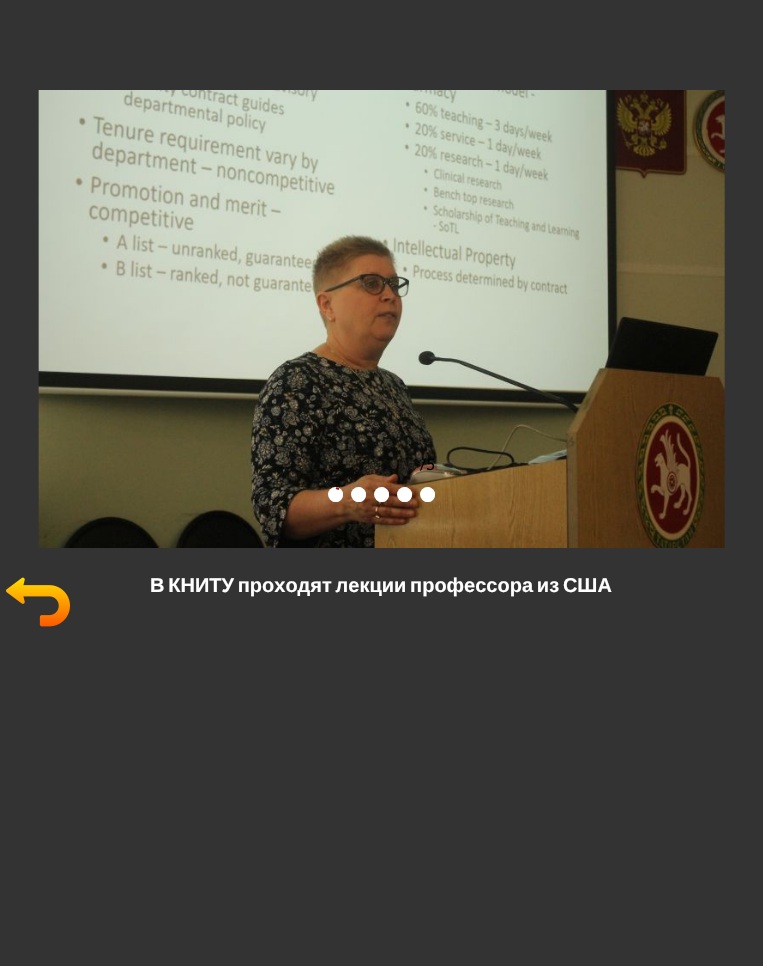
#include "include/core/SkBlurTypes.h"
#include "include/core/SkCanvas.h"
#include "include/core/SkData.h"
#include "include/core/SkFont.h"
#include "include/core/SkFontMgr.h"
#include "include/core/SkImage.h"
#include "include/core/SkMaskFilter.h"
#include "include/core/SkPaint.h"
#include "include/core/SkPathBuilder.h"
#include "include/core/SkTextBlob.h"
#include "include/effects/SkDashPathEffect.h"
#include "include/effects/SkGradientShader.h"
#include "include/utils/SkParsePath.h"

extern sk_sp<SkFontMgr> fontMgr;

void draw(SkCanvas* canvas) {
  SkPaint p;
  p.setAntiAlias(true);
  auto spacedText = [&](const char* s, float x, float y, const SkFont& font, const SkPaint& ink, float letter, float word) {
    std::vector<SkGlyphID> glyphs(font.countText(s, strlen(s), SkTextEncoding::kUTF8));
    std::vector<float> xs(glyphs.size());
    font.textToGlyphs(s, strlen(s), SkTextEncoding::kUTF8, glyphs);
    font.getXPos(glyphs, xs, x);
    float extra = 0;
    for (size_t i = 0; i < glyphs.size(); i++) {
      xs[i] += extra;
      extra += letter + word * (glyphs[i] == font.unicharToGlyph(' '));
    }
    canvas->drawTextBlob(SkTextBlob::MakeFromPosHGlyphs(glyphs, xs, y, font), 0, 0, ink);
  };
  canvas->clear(SkColorSetRGB(51, 51, 51));
  canvas->drawImageRect(SkImages::DeferredFromEncodedData(SkData::MakeFromFileName("images/1.png")), SkRect::MakeLTRB(38, 90, 725, 548), SkSamplingOptions());
  p.setColor(SK_ColorWHITE);
  canvas->drawCircle(335.5f, 494.5f, 7.5f, p);
  canvas->drawPath(SkPathBuilder().moveTo(336, 488).cubicTo(345.5f, 488, 345, 502, 336, 502).cubicTo(327, 502, 327, 488, 336, 488).close().detach(), p);
  canvas->save();
  canvas->clipPath(SkPathBuilder().moveTo(335.5f, 487).cubicTo(339.5f, 487, 343, 490.5f, 343, 494.5f).cubicTo(343, 498.5f, 339.5f, 502, 335.5f, 502).cubicTo(331.5f, 502, 328, 498.5f, 328, 494.5f).cubicTo(328, 490.5f, 331.5f, 487, 335.5f, 487).close().detach(), true);
  p.setStyle(SkPaint::kStroke_Style);
  p.setStrokeWidth(2);
  p.setColor(SkColorSetRGB(147, 28, 31));
  canvas->drawPath(SkPathBuilder().moveTo(336, 488).lineTo(339, 489).detach(), p);
  canvas->restore();
  p.setStyle(SkPaint::kFill_Style);
  p.setColor(SK_ColorWHITE);
  canvas->drawCircle(358.5f, 494.5f, 7.5f, p);
  canvas->drawPath(SkPathBuilder().moveTo(359, 488).cubicTo(368.5f, 488, 368, 502, 359, 502).cubicTo(350, 502, 350, 488, 359, 488).close().detach(), p);
  canvas->save();
  canvas->clipPath(SkPathBuilder().moveTo(358.5f, 487).cubicTo(362.5f, 487, 366, 490.5f, 366, 494.5f).cubicTo(366, 498.5f, 362.5f, 502, 358.5f, 502).cubicTo(354.5f, 502, 351, 498.5f, 351, 494.5f).cubicTo(351, 490.5f, 354.5f, 487, 358.5f, 487).close().detach(), true);
  p.setStyle(SkPaint::kStroke_Style);
  canvas->drawPath(SkPathBuilder().moveTo(359, 488).lineTo(362, 489).detach(), p);
  canvas->restore();
  p.setStyle(SkPaint::kFill_Style);
  canvas->drawCircle(381.5f, 494.5f, 7.5f, p);
  canvas->drawPath(SkPathBuilder().moveTo(382, 488).cubicTo(391.5f, 488, 391, 502, 382, 502).cubicTo(373, 502, 373, 488, 382, 488).close().detach(), p);
  canvas->save();
  canvas->clipPath(SkPathBuilder().moveTo(381.5f, 487).cubicTo(385.5f, 487, 389, 490.5f, 389, 494.5f).cubicTo(389, 498.5f, 385.5f, 502, 381.5f, 502).cubicTo(377.5f, 502, 374, 498.5f, 374, 494.5f).cubicTo(374, 490.5f, 377.5f, 487, 381.5f, 487).close().detach(), true);
  p.setStyle(SkPaint::kStroke_Style);
  canvas->drawPath(SkPathBuilder().moveTo(382, 488).lineTo(385, 489).detach(), p);
  canvas->restore();
  p.setStyle(SkPaint::kFill_Style);
  canvas->drawCircle(404.5f, 494.5f, 7.5f, p);
  canvas->drawPath(SkPathBuilder().moveTo(405, 488).cubicTo(414.5f, 488, 414, 502, 405, 502).cubicTo(396, 502, 396, 488, 405, 488).close().detach(), p);
  canvas->save();
  canvas->clipPath(SkPathBuilder().moveTo(404.5f, 487).cubicTo(408.5f, 487, 412, 490.5f, 412, 494.5f).cubicTo(412, 498.5f, 408.5f, 502, 404.5f, 502).cubicTo(400.5f, 502, 397, 498.5f, 397, 494.5f).cubicTo(397, 490.5f, 400.5f, 487, 404.5f, 487).close().detach(), true);
  p.setStyle(SkPaint::kStroke_Style);
  canvas->drawPath(SkPathBuilder().moveTo(405, 488).lineTo(408, 489).detach(), p);
  canvas->restore();
  p.setStyle(SkPaint::kFill_Style);
  canvas->drawCircle(427.5f, 494.5f, 7.5f, p);
  canvas->drawPath(SkPathBuilder().moveTo(428, 488).cubicTo(437.5f, 488, 437, 502, 428, 502).cubicTo(419, 502, 419, 488, 428, 488).close().detach(), p);
  canvas->save();
  canvas->clipPath(SkPathBuilder().moveTo(427.5f, 487).cubicTo(431.5f, 487, 435, 490.5f, 435, 494.5f).cubicTo(435, 498.5f, 431.5f, 502, 427.5f, 502).cubicTo(423.5f, 502, 420, 498.5f, 420, 494.5f).cubicTo(420, 490.5f, 423.5f, 487, 427.5f, 487).close().detach(), true);
  p.setStyle(SkPaint::kStroke_Style);
  canvas->drawPath(SkPathBuilder().moveTo(428, 488).lineTo(431, 489).detach(), p);
  canvas->restore();
  canvas->drawImageRect(SkImages::DeferredFromEncodedData(SkData::MakeFromFileName("images/2.png")), SkRect::MakeLTRB(6, 577, 70, 627), SkSamplingOptions());
  SkFont font1(fontMgr->matchFamilyStyle("Lato", SkFontStyle::Normal()), 16);
  font1.setSubpixel(true);
  p.setStyle(SkPaint::kFill_Style);
  p.setColor(SK_ColorBLACK);
  canvas->drawString("/5", 420, 470, font1, p);
  SkFont font2(fontMgr->matchFamilyStyle("Liberation Sans", SkFontStyle::Bold()), 20);
  font2.setSubpixel(true);
  p.setColor(SK_ColorWHITE);
  spacedText("В КНИТУ проходят лекции профессора из США", 150, 592, font2, p, 0, -1.75f);
}
